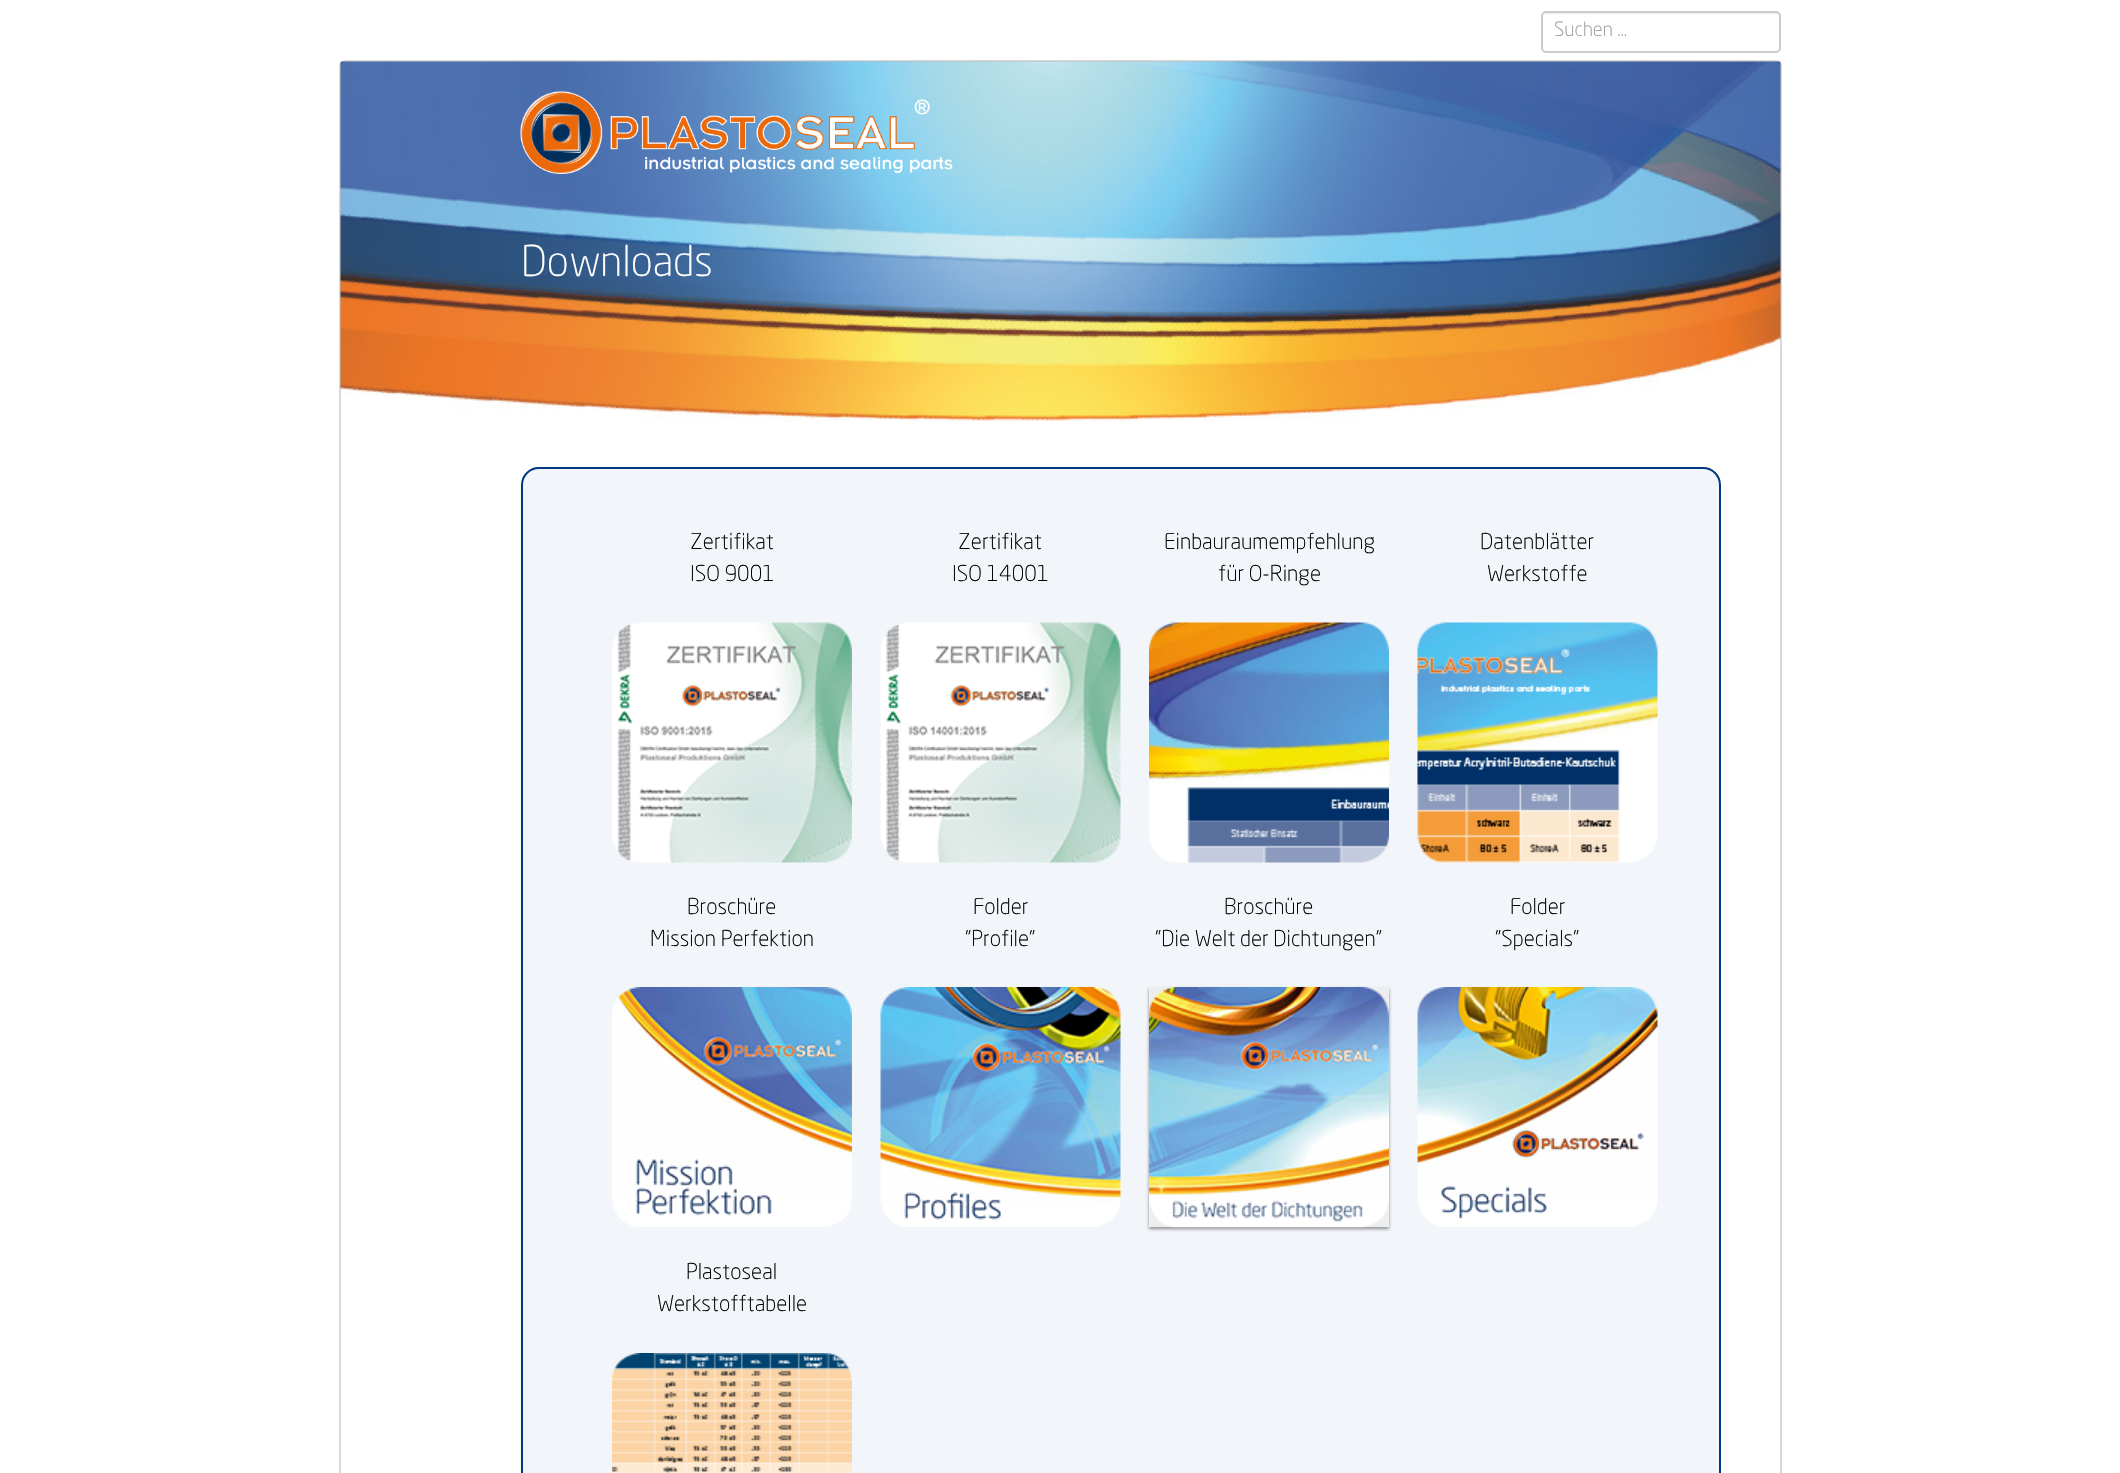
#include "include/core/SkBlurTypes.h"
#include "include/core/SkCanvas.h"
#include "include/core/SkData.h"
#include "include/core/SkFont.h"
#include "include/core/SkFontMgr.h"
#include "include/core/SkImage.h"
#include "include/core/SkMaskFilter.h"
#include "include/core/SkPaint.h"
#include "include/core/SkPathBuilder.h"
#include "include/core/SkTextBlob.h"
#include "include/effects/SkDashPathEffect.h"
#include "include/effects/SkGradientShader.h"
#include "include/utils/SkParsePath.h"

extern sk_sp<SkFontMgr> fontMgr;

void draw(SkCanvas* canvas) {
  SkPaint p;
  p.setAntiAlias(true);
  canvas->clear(SK_ColorWHITE);
  p.setColor(SkColorSetRGB(236, 236, 236));
  canvas->drawPath(SkPathBuilder().moveTo(1545, 14).lineTo(1776, 14).cubicTo(1778, 14, 1779, 15, 1779, 16).cubicTo(1779, 14, 1778, 12, 1776, 12).lineTo(1545, 12).cubicTo(1543, 12, 1542, 14, 1542, 16).cubicTo(1542, 15, 1543, 14, 1545, 14).close().detach(), p);
  p.setStyle(SkPaint::kStroke_Style);
  p.setStrokeWidth(2);
  p.setColor(SkColorSetRGB(204, 204, 204));
  canvas->drawRoundRect(SkRect::MakeLTRB(1542, 12, 1780, 52), 4, 4, p);
  canvas->drawImageRect(SkImages::DeferredFromEncodedData(SkData::MakeFromFileName("images/1.png")), SkRect::MakeLTRB(340, 61, 1781, 422), SkSamplingOptions());
  p.setColor(SkColorSetARGB(38, 0, 0, 0));
  canvas->drawRoundRect(SkRect::MakeLTRB(340, 61, 1781, 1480), 5, 5, p);
  canvas->drawImageRect(SkImages::DeferredFromEncodedData(SkData::MakeFromFileName("images/2.png")), SkRect::MakeLTRB(520, 91, 953, 174), SkSamplingOptions());
  p.setStyle(SkPaint::kFill_Style);
  p.setColor(SkColorSetRGB(242, 245, 249));
  canvas->drawPath(SkPathBuilder().moveTo(539, 468).lineTo(1703, 468).cubicTo(1712.5f, 468, 1720, 475.5f, 1720, 485).lineTo(1720, 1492).lineTo(522, 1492).lineTo(522, 485).cubicTo(522, 475.5f, 529.5f, 468, 539, 468).close().detach(), p);
  p.setStyle(SkPaint::kStroke_Style);
  p.setColor(SkColorSetRGB(0, 56, 130));
  canvas->drawPath(SkPathBuilder().moveTo(539, 468).lineTo(1703, 468).cubicTo(1712.5f, 468, 1720, 475.5f, 1720, 485).lineTo(1720, 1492).lineTo(522, 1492).lineTo(522, 485).cubicTo(522, 475.5f, 529.5f, 468, 539, 468).close().detach(), p);
  canvas->drawImageRect(SkImages::DeferredFromEncodedData(SkData::MakeFromFileName("images/3.png")), SkRect::MakeLTRB(612, 622, 852, 863), SkSamplingOptions());
  canvas->drawImageRect(SkImages::DeferredFromEncodedData(SkData::MakeFromFileName("images/4.png")), SkRect::MakeLTRB(880, 622, 1121, 863), SkSamplingOptions());
  canvas->drawImageRect(SkImages::DeferredFromEncodedData(SkData::MakeFromFileName("images/5.png")), SkRect::MakeLTRB(1149, 622, 1389, 863), SkSamplingOptions());
  canvas->drawImageRect(SkImages::DeferredFromEncodedData(SkData::MakeFromFileName("images/6.png")), SkRect::MakeLTRB(1417, 622, 1658, 863), SkSamplingOptions());
  canvas->drawImageRect(SkImages::DeferredFromEncodedData(SkData::MakeFromFileName("images/7.png")), SkRect::MakeLTRB(612, 987, 852, 1227), SkSamplingOptions());
  canvas->drawImageRect(SkImages::DeferredFromEncodedData(SkData::MakeFromFileName("images/8.png")), SkRect::MakeLTRB(880, 987, 1121, 1227), SkSamplingOptions());
  p.setStyle(SkPaint::kFill_Style);
  p.setColor(SkColorSetARGB(56, 0, 0, 0));
  p.setMaskFilter(SkMaskFilter::MakeBlur(kNormal_SkBlurStyle, 1.5f));
  canvas->drawRect(SkRect::MakeLTRB(1149, 989, 1389, 1229), p);
  p.setMaskFilter(nullptr);
  p.setMaskFilter(SkMaskFilter::MakeBlur(kNormal_SkBlurStyle, 1.5f));
  canvas->drawRect(SkRect::MakeLTRB(1149, 989, 1389, 1229), p);
  p.setMaskFilter(nullptr);
  p.setColor(SkColorSetRGB(238, 238, 238));
  canvas->drawRect(SkRect::MakeLTRB(1149, 987, 1389, 1227), p);
  canvas->drawImageRect(SkImages::DeferredFromEncodedData(SkData::MakeFromFileName("images/9.png")), SkRect::MakeLTRB(1149, 987, 1389, 1228), SkSamplingOptions());
  canvas->drawImageRect(SkImages::DeferredFromEncodedData(SkData::MakeFromFileName("images/10.png")), SkRect::MakeLTRB(1417, 987, 1658, 1227), SkSamplingOptions());
  canvas->drawImageRect(SkImages::DeferredFromEncodedData(SkData::MakeFromFileName("images/11.png")), SkRect::MakeLTRB(612, 1353, 852, 1473), SkSamplingOptions());
  SkFont font1(fontMgr->matchFamilyStyle("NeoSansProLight", SkFontStyle(300, SkFontStyle::kNormal_Width, SkFontStyle::kUpright_Slant)), 19.5f);
  font1.setSubpixel(true);
  p.setColor(SkColorSetRGB(153, 153, 153));
  canvas->drawString("Suchen ...", 1554, 36, font1, p);
  SkFont font2(fontMgr->matchFamilyStyle("NeoSansProLight", SkFontStyle(300, SkFontStyle::kNormal_Width, SkFontStyle::kUpright_Slant)), 42);
  font2.setSubpixel(true);
  p.setColor(SK_ColorWHITE);
  canvas->drawString("Downloads", 521, 276, font2, p);
  SkFont font3(fontMgr->matchFamilyStyle("NeoSansProLight", SkFontStyle(300, SkFontStyle::kNormal_Width, SkFontStyle::kUpright_Slant)), 21.6f);
  font3.setSubpixel(true);
  p.setColor(SK_ColorBLACK);
  canvas->drawString("Zertifikat", 690, 549, font3, p);
  canvas->drawString("ISO 9001", 690, 581, font3, p);
  canvas->drawString("Zertifikat", 958, 549, font3, p);
  canvas->drawString("ISO 14001", 952, 581, font3, p);
  canvas->drawString("Einbauraumempfehlung", 1164, 549, font3, p);
  canvas->drawString("für O-Ringe", 1218, 581, font3, p);
  canvas->drawString("Datenblätter", 1480, 549, font3, p);
  canvas->drawString("Werkstoffe", 1487, 581, font3, p);
  canvas->drawString("Broschüre", 687, 914, font3, p);
  canvas->drawString("Mission Perfektion", 650, 946, font3, p);
  canvas->drawString("Folder", 973, 914, font3, p);
  canvas->drawString("\"Profile\"", 965, 946, font3, p);
  canvas->drawString("Broschüre", 1224, 914, font3, p);
  canvas->drawString("\"Die Welt der Dichtungen\"", 1155, 946, font3, p);
  canvas->drawString("Folder", 1510, 914, font3, p);
  canvas->drawString("\"Specials\"", 1495, 946, font3, p);
  canvas->drawString("Plastoseal", 686, 1279, font3, p);
  canvas->drawString("Werkstofftabelle", 657, 1311, font3, p);
}
